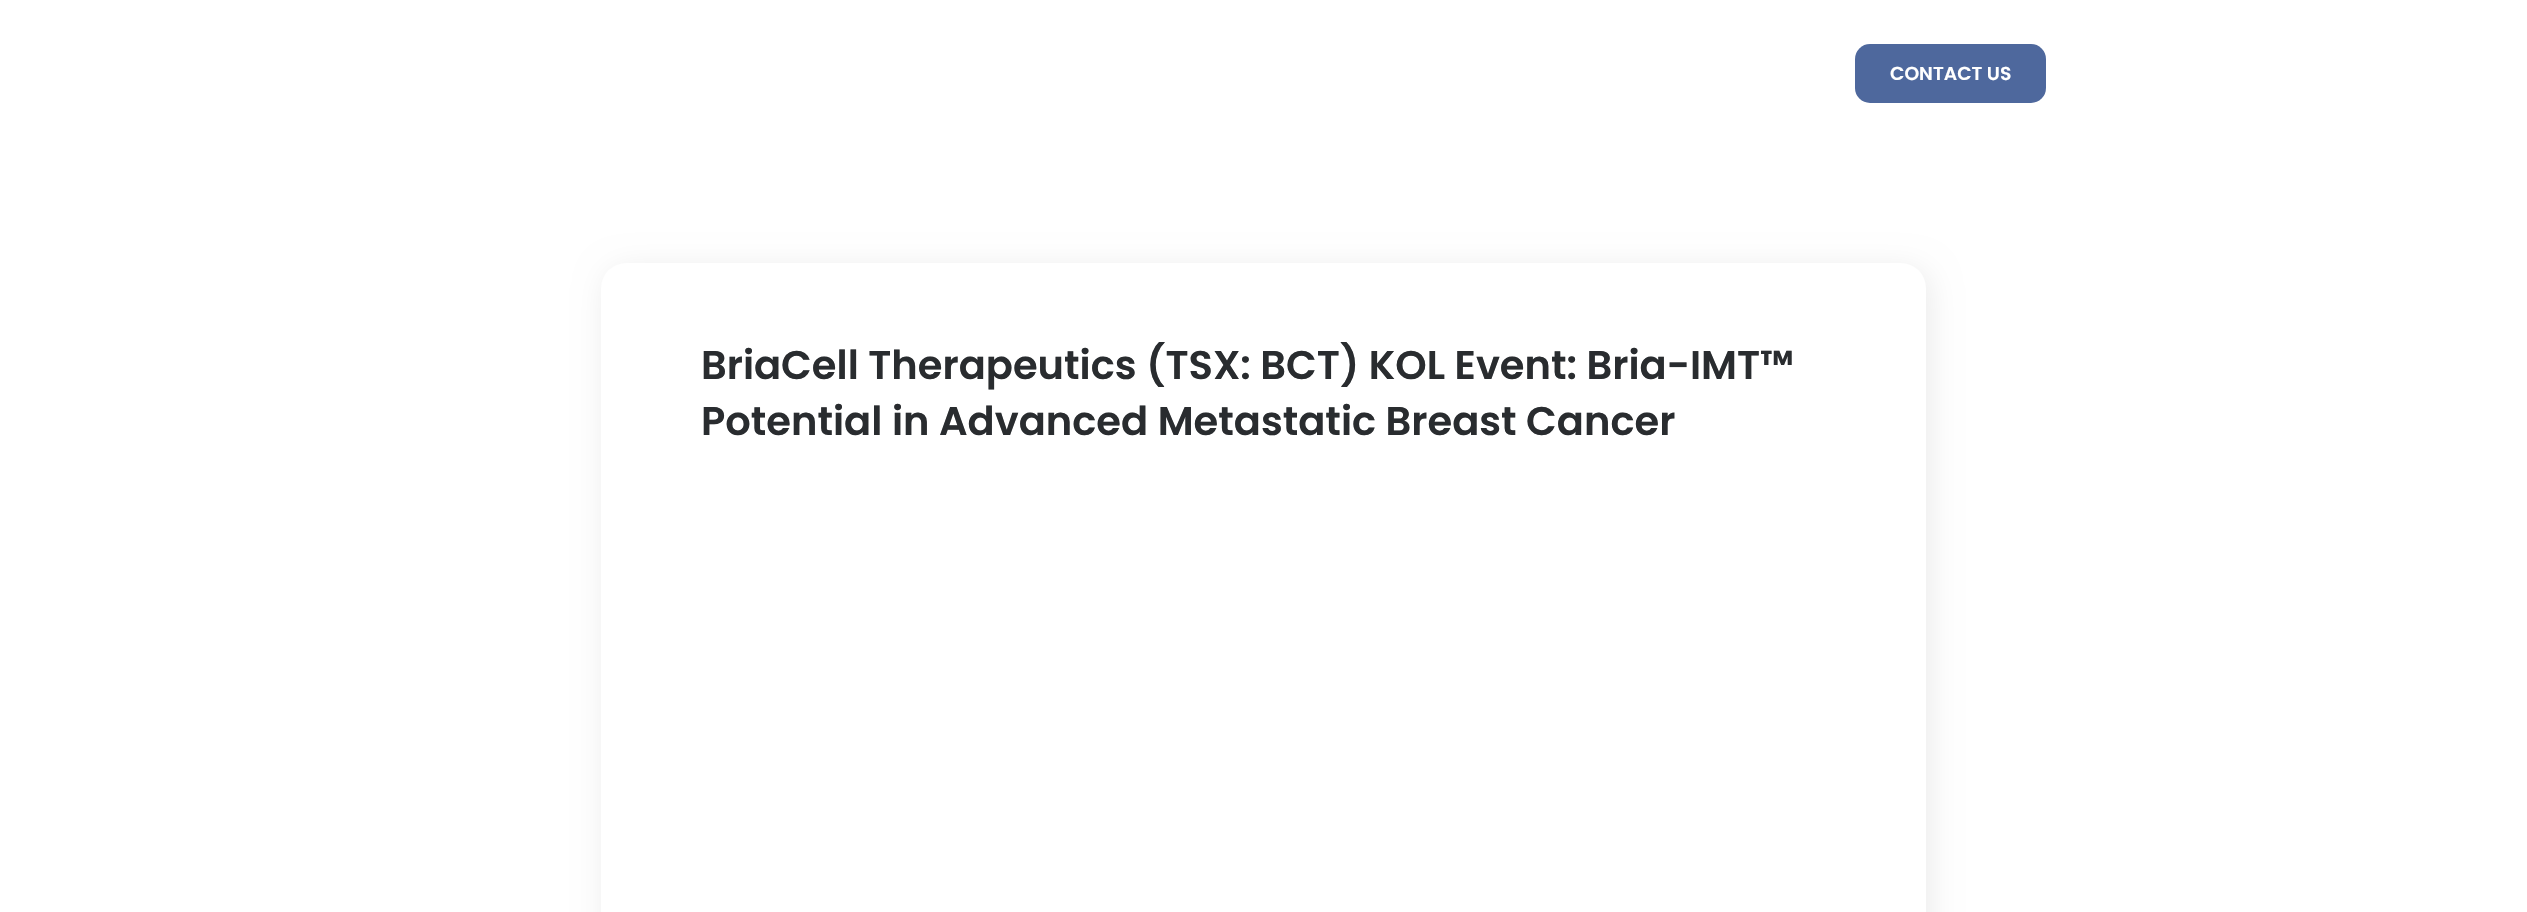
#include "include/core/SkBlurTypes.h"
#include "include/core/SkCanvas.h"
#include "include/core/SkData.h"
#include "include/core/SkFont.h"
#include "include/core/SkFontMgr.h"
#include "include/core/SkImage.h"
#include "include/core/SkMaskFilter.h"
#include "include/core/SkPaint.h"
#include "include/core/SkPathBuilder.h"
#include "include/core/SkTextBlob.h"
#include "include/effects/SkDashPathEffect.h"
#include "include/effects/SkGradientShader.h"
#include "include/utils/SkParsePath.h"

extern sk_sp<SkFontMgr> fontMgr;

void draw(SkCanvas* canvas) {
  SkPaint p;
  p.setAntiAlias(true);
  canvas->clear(SK_ColorWHITE);
  p.setColor(SkColorSetRGB(78, 104, 157));
  canvas->drawRoundRect(SkRect::MakeLTRB(1855, 44, 2046, 103), 15, 15, p);
  p.setColor(SkColorSetARGB(20, 0, 0, 0));
  p.setMaskFilter(SkMaskFilter::MakeBlur(kNormal_SkBlurStyle, 15));
  canvas->drawRoundRect(SkRect::MakeLTRB(605, 268, 1930, 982), 25, 25, p);
  p.setMaskFilter(nullptr);
  p.setColor(SK_ColorWHITE);
  canvas->drawRoundRect(SkRect::MakeLTRB(601, 263, 1926, 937), 25, 25, p);
  SkFont font1(fontMgr->matchFamilyStyle("Poppins", SkFontStyle(600, SkFontStyle::kNormal_Width, SkFontStyle::kUpright_Slant)), 18.75f);
  font1.setSubpixel(true);
  canvas->drawString("CONTACT US", 1890, 80, font1, p);
  SkFont font2(fontMgr->matchFamilyStyle("Poppins", SkFontStyle(600, SkFontStyle::kNormal_Width, SkFontStyle::kUpright_Slant)), 40);
  font2.setSubpixel(true);
  p.setColor(SkColorSetRGB(41, 44, 47));
  canvas->drawString("BriaCell Therapeutics (TSX: BCT) KOL Event: Bria-IMT™", 701, 379, font2, p);
  canvas->drawString("Potential in Advanced Metastatic Breast Cancer", 701, 435, font2, p);
}
